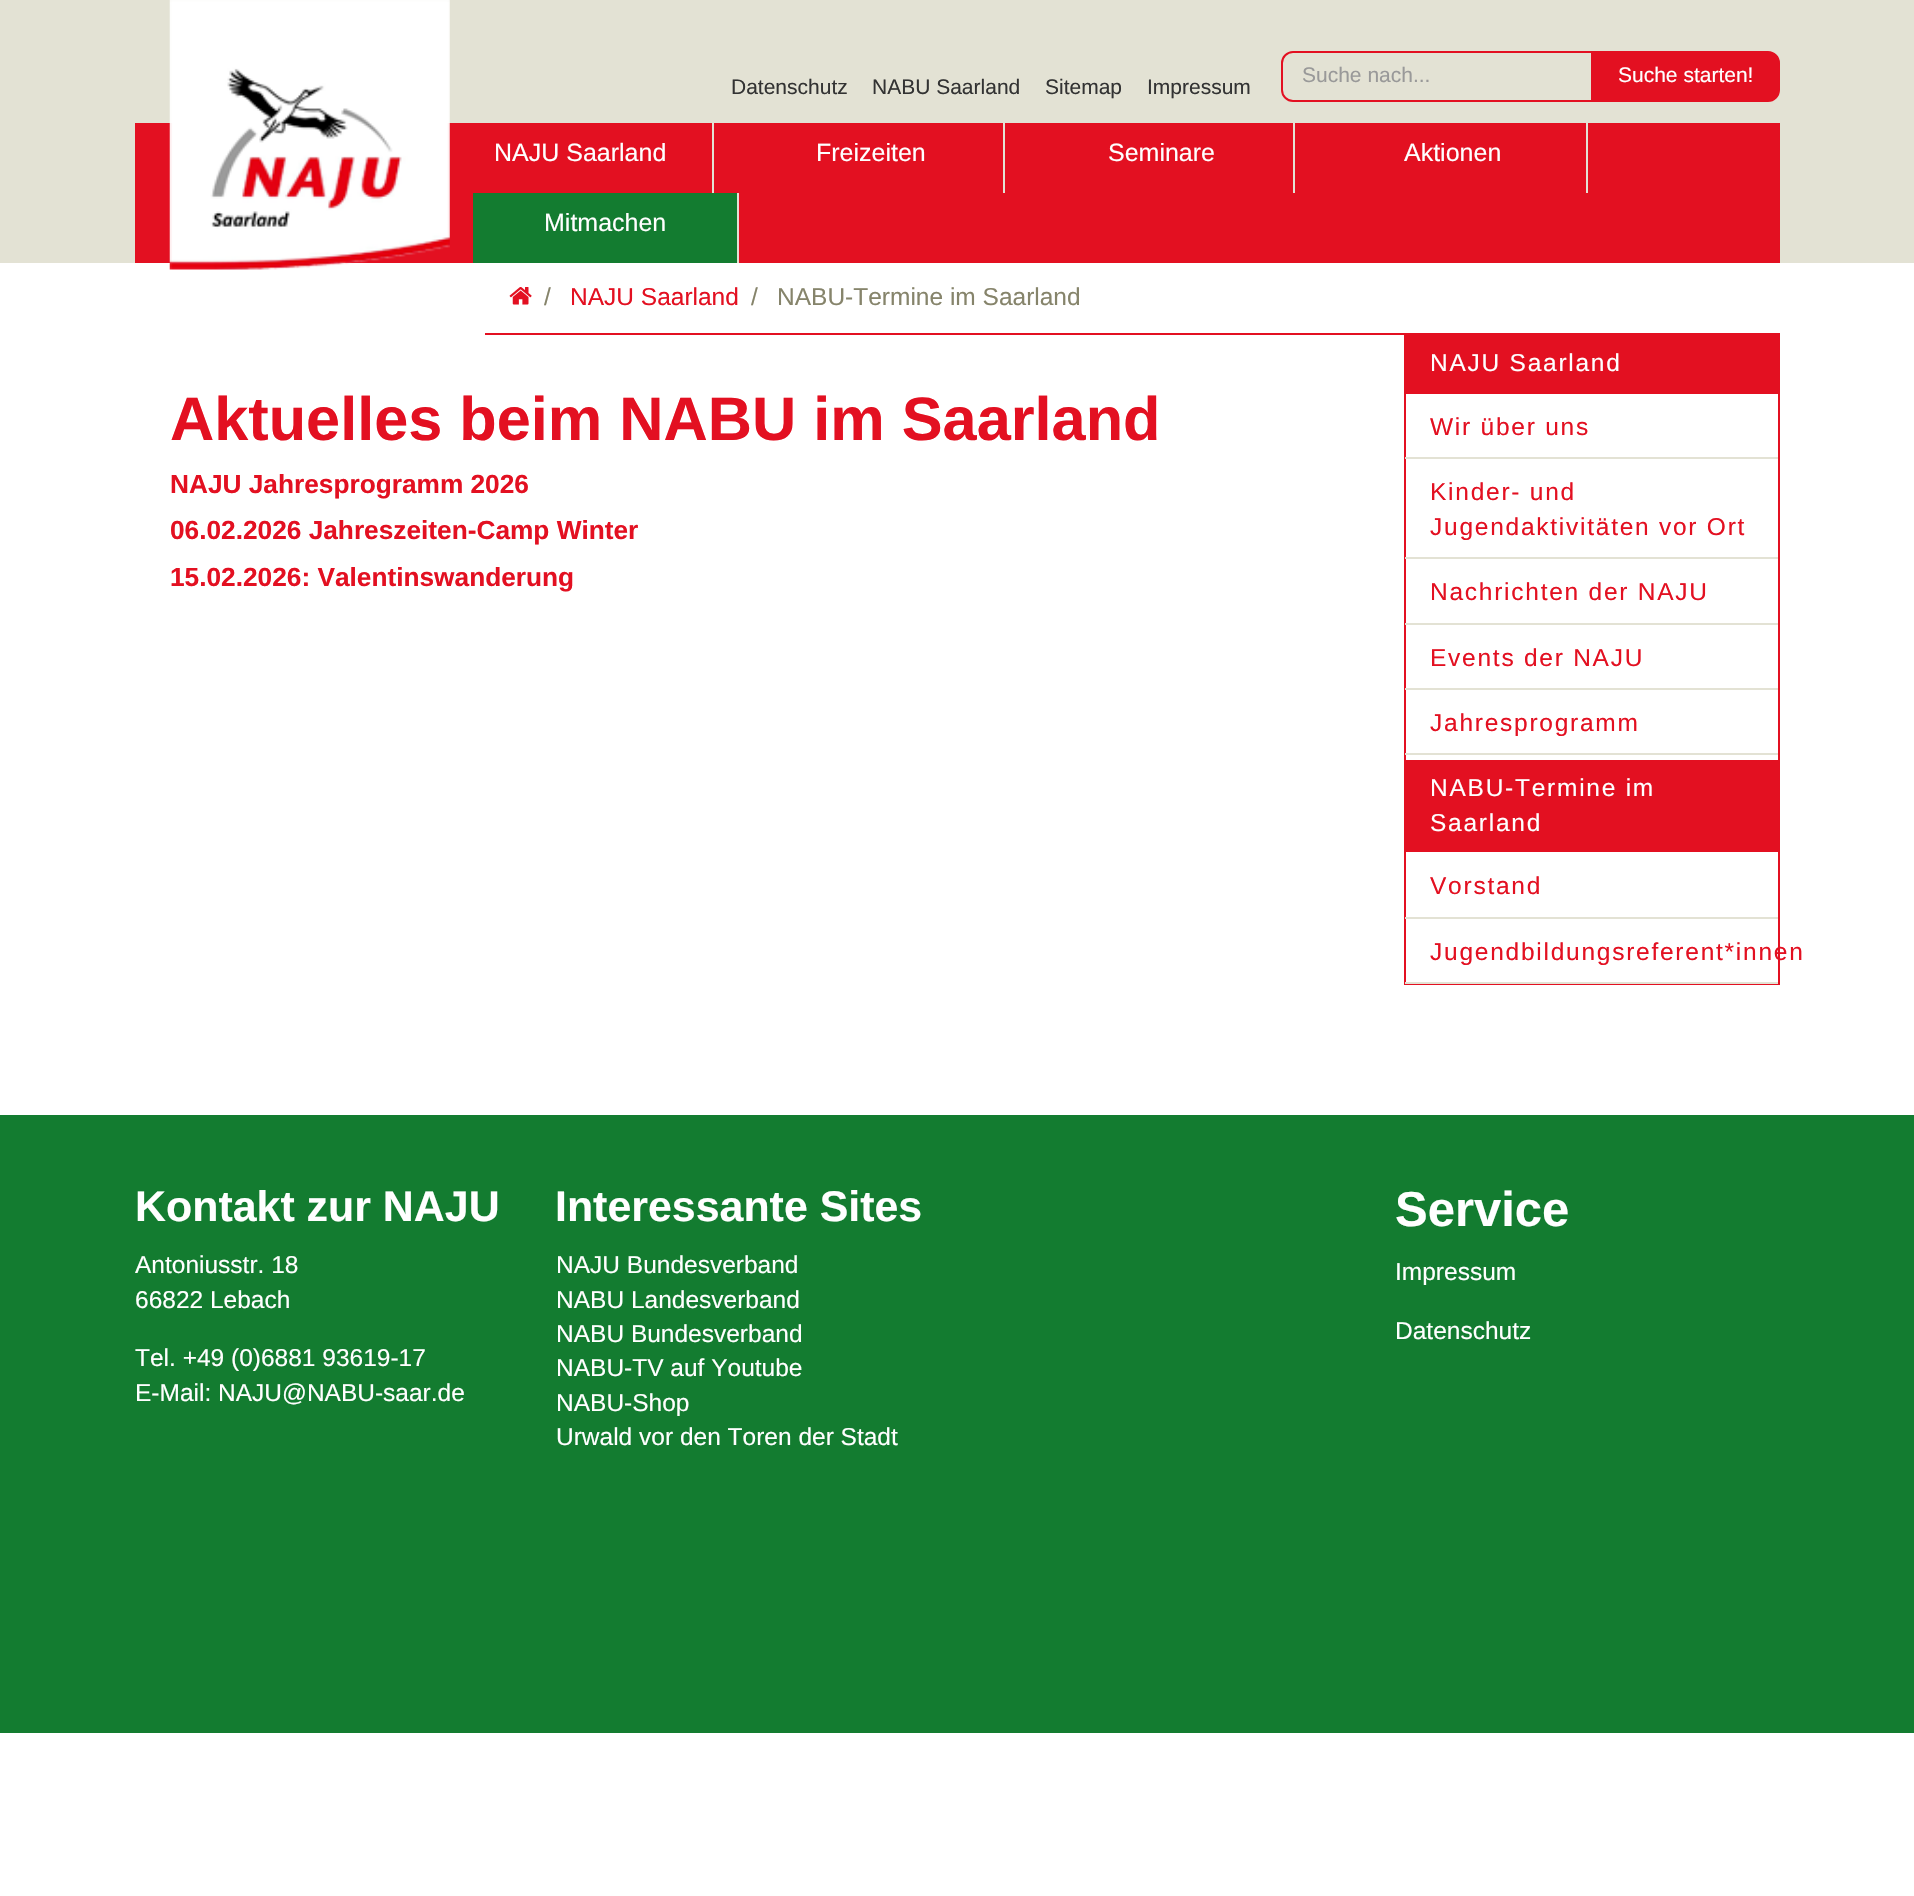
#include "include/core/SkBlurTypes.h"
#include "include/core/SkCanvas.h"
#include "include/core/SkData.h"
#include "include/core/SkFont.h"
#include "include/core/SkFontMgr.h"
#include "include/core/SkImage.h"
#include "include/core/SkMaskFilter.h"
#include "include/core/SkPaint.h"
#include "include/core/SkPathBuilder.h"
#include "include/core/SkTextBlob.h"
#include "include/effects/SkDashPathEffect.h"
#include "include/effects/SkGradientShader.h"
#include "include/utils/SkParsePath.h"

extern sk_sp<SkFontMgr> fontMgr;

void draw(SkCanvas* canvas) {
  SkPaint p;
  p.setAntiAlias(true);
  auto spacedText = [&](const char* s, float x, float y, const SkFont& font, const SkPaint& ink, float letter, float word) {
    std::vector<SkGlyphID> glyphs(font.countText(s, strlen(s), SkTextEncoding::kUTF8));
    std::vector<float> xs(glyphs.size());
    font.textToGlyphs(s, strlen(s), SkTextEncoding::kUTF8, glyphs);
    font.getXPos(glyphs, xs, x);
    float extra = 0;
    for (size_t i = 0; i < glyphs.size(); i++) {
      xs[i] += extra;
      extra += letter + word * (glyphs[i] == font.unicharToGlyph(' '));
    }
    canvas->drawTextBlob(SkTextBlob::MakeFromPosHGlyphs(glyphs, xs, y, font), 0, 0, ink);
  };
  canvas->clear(SK_ColorWHITE);
  p.setColor(SkColorSetRGB(227, 226, 212));
  canvas->drawRect(SkRect::MakeLTRB(0, 0, 1914, 263), p);
  p.setColor(SkColorSetRGB(227, 16, 33));
  canvas->drawRect(SkRect::MakeLTRB(135, 123, 1780, 263), p);
  canvas->drawImageRect(SkImages::DeferredFromEncodedData(SkData::MakeFromFileName("images/1.png")), SkRect::MakeLTRB(169, 0, 450, 270), SkSamplingOptions());
  p.setStyle(SkPaint::kStroke_Style);
  p.setStrokeWidth(2);
  canvas->drawPath(SkPathBuilder().moveTo(1293, 52).lineTo(1592, 52).lineTo(1592, 101).lineTo(1293, 101).cubicTo(1287, 101, 1282, 96, 1282, 90).lineTo(1282, 63).cubicTo(1282, 57, 1287, 52, 1293, 52).close().detach(), p);
  p.setStyle(SkPaint::kFill_Style);
  canvas->drawPath(SkPathBuilder().moveTo(1592, 52).lineTo(1768, 52).cubicTo(1774, 52, 1779, 57, 1779, 63).lineTo(1779, 90).cubicTo(1779, 96, 1774, 101, 1768, 101).lineTo(1592, 101).close().detach(), p);
  p.setStyle(SkPaint::kStroke_Style);
  canvas->drawPath(SkPathBuilder().moveTo(1592, 52).lineTo(1768, 52).cubicTo(1774, 52, 1779, 57, 1779, 63).lineTo(1779, 90).cubicTo(1779, 96, 1774, 101, 1768, 101).lineTo(1592, 101).close().detach(), p);
  p.setStyle(SkPaint::kFill_Style);
  p.setColor(SkColorSetRGB(227, 226, 212));
  canvas->drawRect(SkRect::MakeLTRB(712, 123, 714, 193), p);
  canvas->drawRect(SkRect::MakeLTRB(1003, 123, 1005, 193), p);
  canvas->drawRect(SkRect::MakeLTRB(1293, 123, 1295, 193), p);
  canvas->drawRect(SkRect::MakeLTRB(1586, 123, 1588, 193), p);
  p.setColor(SkColorSetRGB(19, 124, 48));
  canvas->drawRect(SkRect::MakeLTRB(473, 193, 737, 263), p);
  p.setColor(SkColorSetRGB(227, 226, 212));
  canvas->drawRect(SkRect::MakeLTRB(737, 193, 739, 263), p);
  p.setColor(SkColorSetRGB(227, 16, 33));
  canvas->drawRect(SkRect::MakeLTRB(485, 333, 1404, 335), p);
  canvas->drawImageRect(SkImages::DeferredFromEncodedData(SkData::MakeFromFileName("images/2.png")), SkRect::MakeLTRB(509, 287, 532, 305), SkSamplingOptions());
  p.setStyle(SkPaint::kStroke_Style);
  canvas->drawRect(SkRect::MakeLTRB(1405, 334, 1779, 984), p);
  p.setStyle(SkPaint::kFill_Style);
  canvas->drawRect(SkRect::MakeLTRB(1406, 335, 1778, 394), p);
  p.setColor(SkColorSetRGB(227, 226, 212));
  canvas->drawRect(SkRect::MakeLTRB(1405, 457, 1778, 459), p);
  canvas->drawRect(SkRect::MakeLTRB(1405, 557, 1778, 559), p);
  canvas->drawRect(SkRect::MakeLTRB(1405, 623, 1778, 625), p);
  canvas->drawRect(SkRect::MakeLTRB(1405, 688, 1778, 690), p);
  canvas->drawRect(SkRect::MakeLTRB(1405, 753, 1778, 755), p);
  p.setColor(SkColorSetRGB(227, 16, 33));
  canvas->drawRect(SkRect::MakeLTRB(1406, 760, 1778, 852), p);
  p.setColor(SkColorSetRGB(227, 226, 212));
  canvas->drawRect(SkRect::MakeLTRB(1405, 917, 1778, 919), p);
  canvas->drawRect(SkRect::MakeLTRB(1405, 982, 1778, 984), p);
  p.setColor(SkColorSetRGB(19, 124, 48));
  canvas->drawRect(SkRect::MakeLTRB(0, 1115, 1914, 1733), p);
  SkFont font1(fontMgr->matchFamilyStyle("Liberation Sans", SkFontStyle::Normal()), 21);
  font1.setSubpixel(true);
  p.setColor(SkColorSetRGB(153, 153, 153));
  canvas->drawString("Suche nach...", 1302, 82, font1, p);
  p.setColor(SK_ColorWHITE);
  canvas->drawString("Suche starten!", 1618, 82, font1, p);
  p.setColor(SkColorSetRGB(51, 51, 51));
  canvas->drawString("Datenschutz", 731, 94, font1, p);
  canvas->drawString("NABU Saarland", 872, 94, font1, p);
  canvas->drawString("Sitemap", 1045, 94, font1, p);
  canvas->drawString("Impressum", 1147, 94, font1, p);
  SkFont font2(fontMgr->matchFamilyStyle("Liberation Sans", SkFontStyle::Normal()), 25);
  font2.setSubpixel(true);
  p.setColor(SK_ColorWHITE);
  canvas->drawString("NAJU Saarland", 494, 161, font2, p);
  canvas->drawString("Freizeiten", 816, 161, font2, p);
  canvas->drawString("Seminare", 1108, 161, font2, p);
  canvas->drawString("Aktionen", 1404, 161, font2, p);
  canvas->drawString("Mitmachen", 544, 231, font2, p);
  SkFont font3(fontMgr->matchFamilyStyle("Liberation Sans", SkFontStyle::Normal()), 24.5f);
  font3.setSubpixel(true);
  p.setColor(SkColorSetRGB(134, 132, 107));
  canvas->drawString("/", 544, 305, font3, p);
  p.setColor(SkColorSetRGB(227, 16, 33));
  canvas->drawString("NAJU Saarland", 570, 305, font3, p);
  p.setColor(SkColorSetRGB(134, 132, 107));
  canvas->drawString("/", 751, 305, font3, p);
  canvas->drawString("NABU-Termine im Saarland", 777, 305, font3, p);
  SkFont font4(fontMgr->matchFamilyStyle("Liberation Sans", SkFontStyle::Bold()), 61.25f);
  font4.setSubpixel(true);
  p.setColor(SkColorSetRGB(227, 16, 33));
  canvas->drawString("Aktuelles beim NABU im Saarland", 170, 440, font4, p);
  SkFont font5(fontMgr->matchFamilyStyle("Liberation Sans", SkFontStyle::Bold()), 26.25f);
  font5.setSubpixel(true);
  canvas->drawString("NAJU Jahresprogramm 2026", 170, 493, font5, p);
  canvas->drawString("06.02.2026 Jahreszeiten-Camp Winter", 170, 539, font5, p);
  canvas->drawString("15.02.2026: Valentinswanderung", 170, 586, font5, p);
  p.setColor(SK_ColorWHITE);
  spacedText("NAJU Saarland", 1430, 371, font3, p, 1.75f, 0);
  p.setColor(SkColorSetRGB(227, 16, 33));
  spacedText("Wir über uns", 1430, 435, font3, p, 1.75f, 0);
  spacedText("Kinder- und", 1430, 500, font3, p, 1.75f, 0);
  spacedText("Jugendaktivitäten vor Ort", 1430, 535, font3, p, 1.75f, 0);
  spacedText("Nachrichten der NAJU", 1430, 600, font3, p, 1.75f, 0);
  spacedText("Events der NAJU", 1430, 666, font3, p, 1.75f, 0);
  spacedText("Jahresprogramm", 1430, 731, font3, p, 1.75f, 0);
  p.setColor(SK_ColorWHITE);
  spacedText("NABU-Termine im", 1430, 796, font3, p, 1.75f, 0);
  spacedText("Saarland", 1430, 831, font3, p, 1.75f, 0);
  p.setColor(SkColorSetRGB(227, 16, 33));
  spacedText("Vorstand", 1430, 894, font3, p, 1.75f, 0);
  spacedText("Jugendbildungsreferent*innen", 1430, 960, font3, p, 1.75f, 0);
  SkFont font6(fontMgr->matchFamilyStyle("Liberation Sans", SkFontStyle::Bold()), 42.9f);
  font6.setSubpixel(true);
  p.setColor(SK_ColorWHITE);
  canvas->drawString("Kontakt zur NAJU", 135, 1221, font6, p);
  canvas->drawString("Antoniusstr. 18", 135, 1273, font3, p);
  canvas->drawString("66822 Lebach", 135, 1308, font3, p);
  canvas->drawString("Tel. +49 (0)6881 93619-17", 135, 1366, font3, p);
  canvas->drawString("E-Mail: NAJU@NABU-saar.de", 135, 1401, font3, p);
  canvas->drawString("Interessante Sites", 555, 1221, font6, p);
  canvas->drawString("NAJU Bundesverband", 556, 1273, font3, p);
  canvas->drawString("NABU Landesverband", 556, 1308, font3, p);
  canvas->drawString("NABU Bundesverband", 556, 1342, font3, p);
  canvas->drawString("NABU-TV auf Youtube", 556, 1376, font3, p);
  canvas->drawString("NABU-Shop", 556, 1411, font3, p);
  canvas->drawString("Urwald vor den Toren der Stadt", 556, 1445, font3, p);
  SkFont font7(fontMgr->matchFamilyStyle("Liberation Sans", SkFontStyle::Bold()), 49);
  font7.setSubpixel(true);
  canvas->drawString("Service", 1395, 1226, font7, p);
  canvas->drawString("Impressum", 1395, 1280, font3, p);
  canvas->drawString("Datenschutz", 1395, 1339, font3, p);
}
